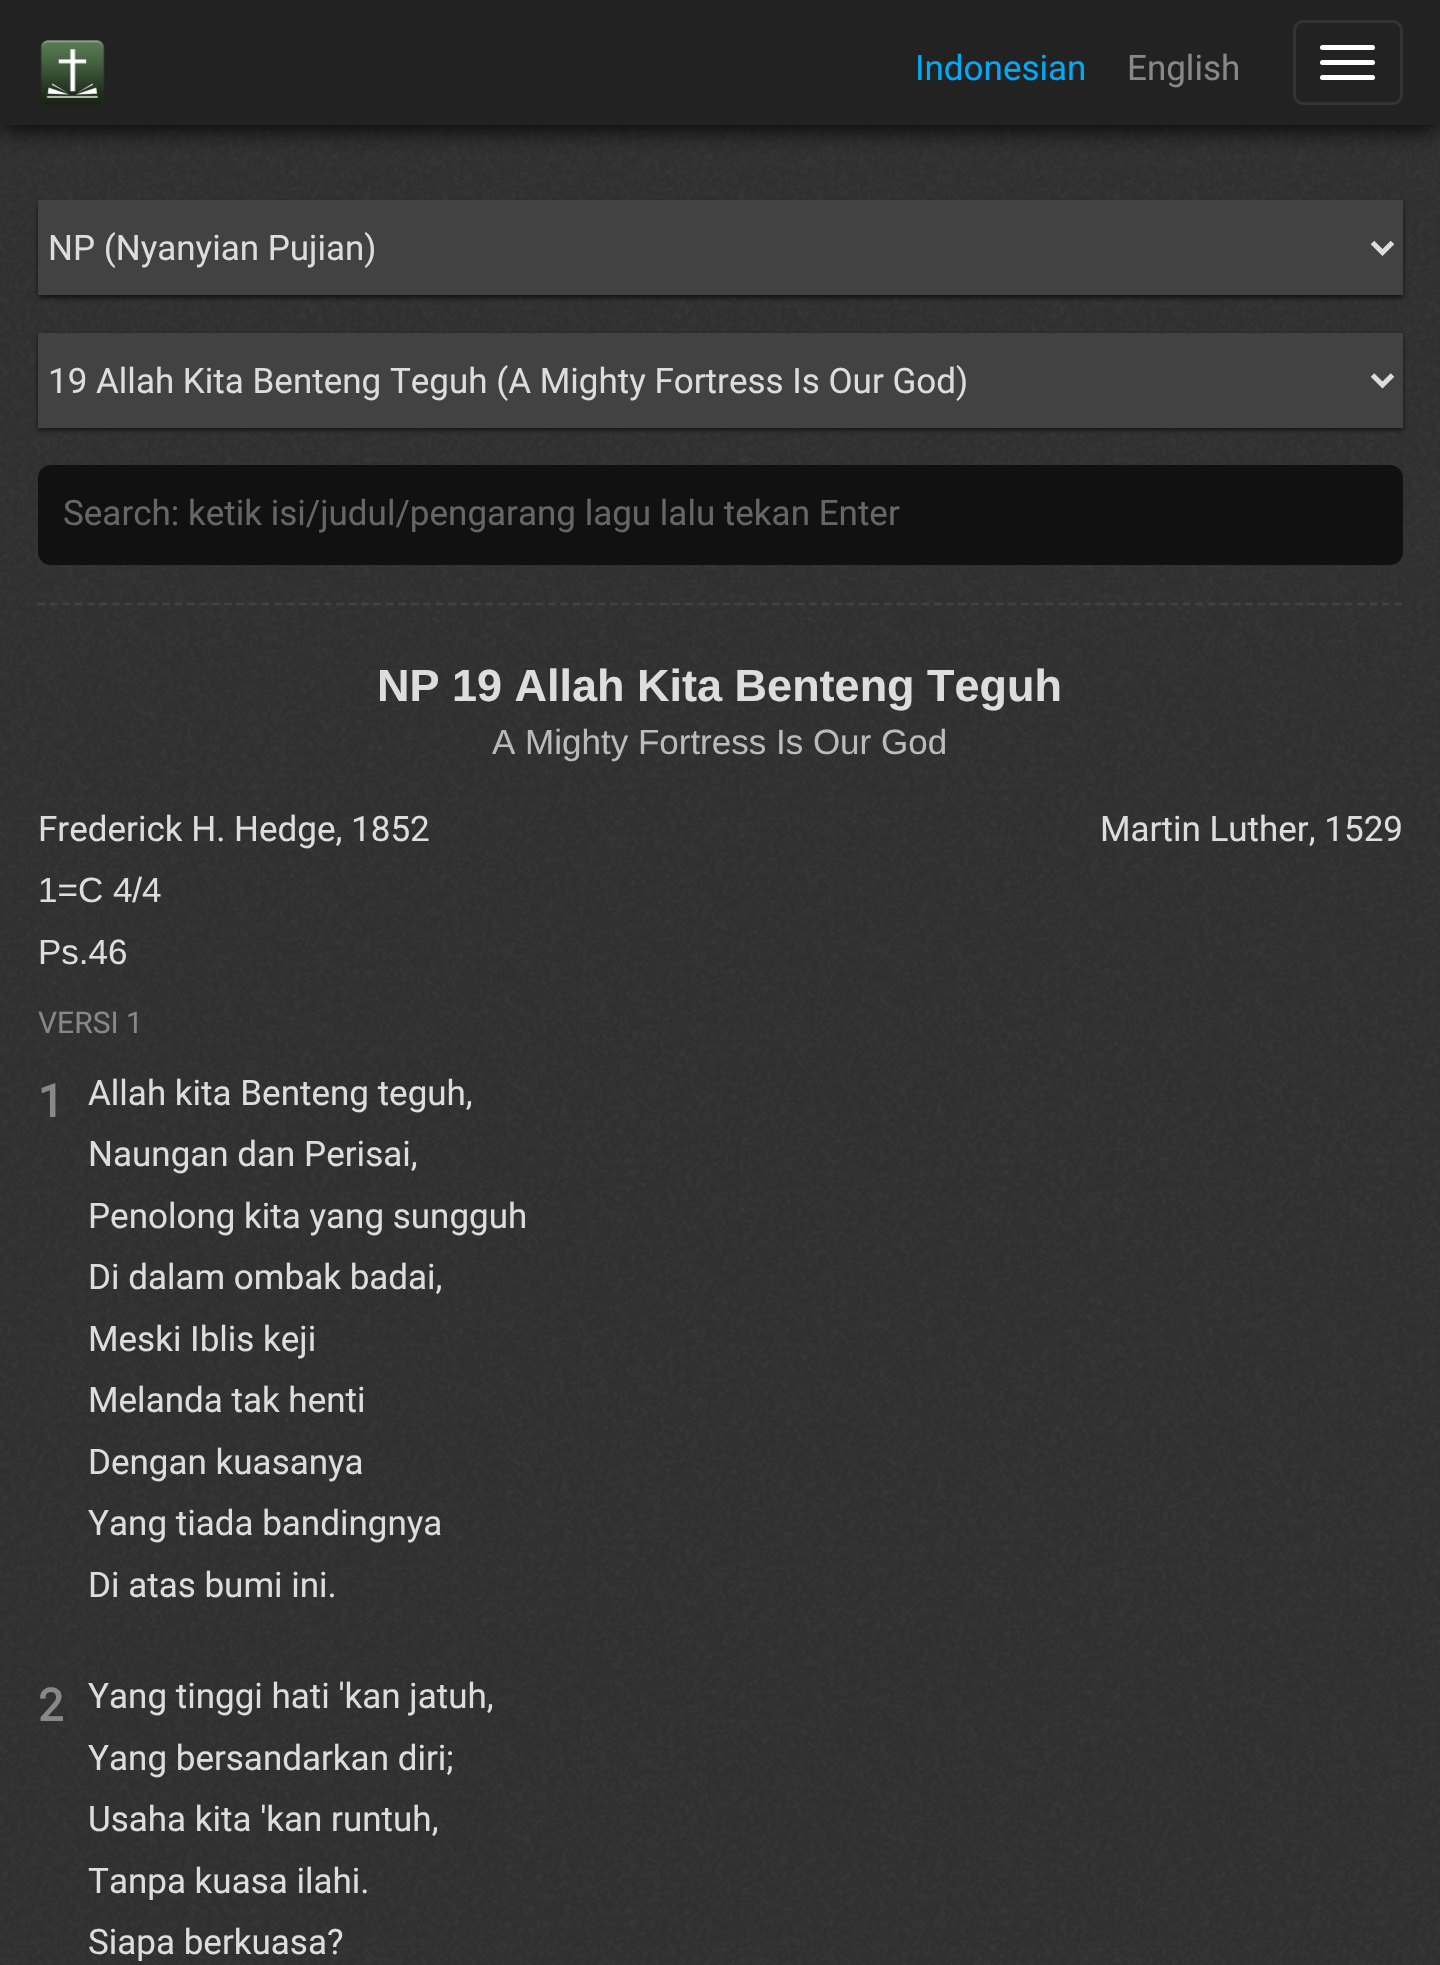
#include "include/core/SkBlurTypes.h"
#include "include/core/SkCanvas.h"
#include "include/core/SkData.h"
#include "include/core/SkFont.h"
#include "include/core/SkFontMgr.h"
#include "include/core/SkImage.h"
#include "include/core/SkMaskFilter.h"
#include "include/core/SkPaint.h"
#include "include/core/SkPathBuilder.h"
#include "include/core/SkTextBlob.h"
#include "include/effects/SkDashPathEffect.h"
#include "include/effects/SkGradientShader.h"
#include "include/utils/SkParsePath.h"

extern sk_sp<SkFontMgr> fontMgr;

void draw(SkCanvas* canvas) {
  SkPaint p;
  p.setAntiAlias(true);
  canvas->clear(SkColorSetRGB(48, 48, 48));
  canvas->drawImageRect(SkImages::DeferredFromEncodedData(SkData::MakeFromFileName("images/1.png")), SkRect::MakeLTRB(0, 125, 1440, 1965), SkSamplingOptions());
  p.setColor(SK_ColorBLACK);
  p.setMaskFilter(SkMaskFilter::MakeBlur(kNormal_SkBlurStyle, 12.5f));
  canvas->drawRect(SkRect::MakeLTRB(0, 3, 1440, 128), p);
  p.setMaskFilter(nullptr);
  p.setColor(SkColorSetRGB(34, 34, 34));
  canvas->drawRect(SkRect::MakeLTRB(0, 0, 1440, 125), p);
  canvas->drawImageRect(SkImages::DeferredFromEncodedData(SkData::MakeFromFileName("images/2.png")), SkRect::MakeLTRB(40, 40, 105, 106), SkSamplingOptions());
  p.setStyle(SkPaint::kStroke_Style);
  p.setStrokeWidth(3);
  p.setColor(SkColorSetRGB(51, 51, 51));
  canvas->drawRoundRect(SkRect::MakeLTRB(1294.5f, 21.5f, 1401.5f, 103.5f), 8.5f, 8.5f, p);
  p.setStyle(SkPaint::kFill_Style);
  p.setColor(SK_ColorWHITE);
  canvas->drawRoundRect(SkRect::MakeLTRB(1320, 45, 1375, 50), 2.5f, 2.5f, p);
  canvas->drawRoundRect(SkRect::MakeLTRB(1320, 60, 1375, 65), 2.5f, 2.5f, p);
  canvas->drawRoundRect(SkRect::MakeLTRB(1320, 75, 1375, 80), 2.5f, 2.5f, p);
  p.setColor(SkColorSetRGB(17, 17, 17));
  p.setMaskFilter(SkMaskFilter::MakeBlur(kNormal_SkBlurStyle, 2.5f));
  canvas->drawRect(SkRect::MakeLTRB(38, 203, 1403, 298), p);
  p.setMaskFilter(nullptr);
  p.setColor(SkColorSetRGB(66, 66, 66));
  canvas->drawRect(SkRect::MakeLTRB(38, 200, 1403, 295), p);
  p.setStyle(SkPaint::kStroke_Style);
  p.setStrokeWidth(5);
  p.setColor(SkColorSetRGB(221, 221, 221));
  canvas->drawPath(SkPathBuilder().moveTo(1372.5f, 242.5f).lineTo(1382.5f, 252.5f).lineTo(1392.5f, 242.5f).detach(), p);
  p.setStyle(SkPaint::kFill_Style);
  p.setColor(SkColorSetRGB(17, 17, 17));
  p.setMaskFilter(SkMaskFilter::MakeBlur(kNormal_SkBlurStyle, 2.5f));
  canvas->drawRect(SkRect::MakeLTRB(38, 335, 1403, 430), p);
  p.setMaskFilter(nullptr);
  p.setColor(SkColorSetRGB(66, 66, 66));
  canvas->drawRect(SkRect::MakeLTRB(38, 333, 1403, 428), p);
  p.setStyle(SkPaint::kStroke_Style);
  p.setColor(SkColorSetRGB(221, 221, 221));
  canvas->drawPath(SkPathBuilder().moveTo(1372.5f, 375).lineTo(1382.5f, 385).lineTo(1392.5f, 375).detach(), p);
  p.setStyle(SkPaint::kFill_Style);
  p.setColor(SkColorSetRGB(17, 17, 17));
  canvas->drawRoundRect(SkRect::MakeLTRB(38, 465, 1403, 565), 13, 13, p);
  p.setStyle(SkPaint::kStroke_Style);
  p.setStrokeWidth(2.5f);
  p.setColor(SkColorSetRGB(66, 66, 66));
  p.setPathEffect(SkDashPathEffect::Make({{7.5f, 4.95f}}, 0));
  canvas->drawPath(SkPathBuilder().moveTo(37.5f, 604).lineTo(1402.5f, 604).detach(), p);
  p.setPathEffect(nullptr);
  SkFont font1(fontMgr->matchFamilyStyle("Roboto", SkFontStyle::Normal()), 35);
  font1.setSubpixel(true);
  p.setStyle(SkPaint::kFill_Style);
  p.setColor(SkColorSetRGB(3, 169, 244));
  canvas->drawString("Indonesian", 915, 80, font1, p);
  p.setColor(SkColorSetRGB(136, 136, 136));
  canvas->drawString("English", 1127, 80, font1, p);
  p.setColor(SkColorSetRGB(221, 221, 221));
  canvas->drawString("NP (Nyanyian Pujian)", 48, 260, font1, p);
  canvas->drawString("19 Allah Kita Benteng Teguh (A Mighty Fortress Is Our God)", 48, 393, font1, p);
  p.setColor(SkColorSetRGB(102, 102, 102));
  canvas->drawString("Search: ketik isi/judul/pengarang lagu lalu tekan Enter", 63, 525, font1, p);
  SkFont font2(fontMgr->matchFamilyStyle("Liberation Sans", SkFontStyle::Bold()), 45);
  font2.setSubpixel(true);
  p.setColor(SkColorSetRGB(221, 221, 221));
  canvas->drawString("NP 19 Allah Kita Benteng Teguh", 377, 701, font2, p);
  SkFont font3(fontMgr->matchFamilyStyle("Liberation Sans", SkFontStyle::Normal()), 35);
  font3.setSubpixel(true);
  p.setColor(SkColorSetRGB(187, 187, 187));
  canvas->drawString("A Mighty Fortress Is Our God", 492, 754, font3, p);
  p.setColor(SkColorSetRGB(221, 221, 221));
  canvas->drawString("Frederick H. Hedge, 1852", 38, 841, font1, p);
  canvas->drawString("Martin Luther, 1529", 1100, 841, font1, p);
  canvas->drawString("1=C 4/4", 38, 902, font3, p);
  canvas->drawString("Ps.46", 38, 964, font3, p);
  SkFont font4(fontMgr->matchFamilyStyle("Roboto", SkFontStyle::Normal()), 30);
  font4.setSubpixel(true);
  p.setColor(SkColorSetRGB(136, 136, 136));
  canvas->drawString("VERSI 1", 38, 1033, font4, p);
  SkFont font5(fontMgr->matchFamilyStyle("Roboto", SkFontStyle::Bold()), 45);
  font5.setSubpixel(true);
  canvas->drawString("1", 38, 1117, font5, p);
  p.setColor(SkColorSetRGB(221, 221, 221));
  canvas->drawString("Allah kita Benteng teguh,", 88, 1105, font1, p);
  canvas->drawString("Naungan dan Perisai,", 88, 1166, font1, p);
  canvas->drawString("Penolong kita yang sungguh", 88, 1228, font1, p);
  canvas->drawString("Di dalam ombak badai,", 88, 1289, font1, p);
  canvas->drawString("Meski Iblis keji", 88, 1351, font1, p);
  canvas->drawString("Melanda tak henti", 88, 1412, font1, p);
  canvas->drawString("Dengan kuasanya", 88, 1474, font1, p);
  canvas->drawString("Yang tiada bandingnya", 88, 1535, font1, p);
  canvas->drawString("Di atas bumi ini.", 88, 1597, font1, p);
  p.setColor(SkColorSetRGB(136, 136, 136));
  canvas->drawString("2", 38, 1721, font5, p);
  p.setColor(SkColorSetRGB(221, 221, 221));
  canvas->drawString("Yang tinggi hati 'kan jatuh,", 88, 1708, font1, p);
  canvas->drawString("Yang bersandarkan diri;", 88, 1770, font1, p);
  canvas->drawString("Usaha kita 'kan runtuh,", 88, 1831, font1, p);
  canvas->drawString("Tanpa kuasa ilahi.", 88, 1893, font1, p);
  canvas->drawString("Siapa berkuasa?", 88, 1954, font1, p);
}
